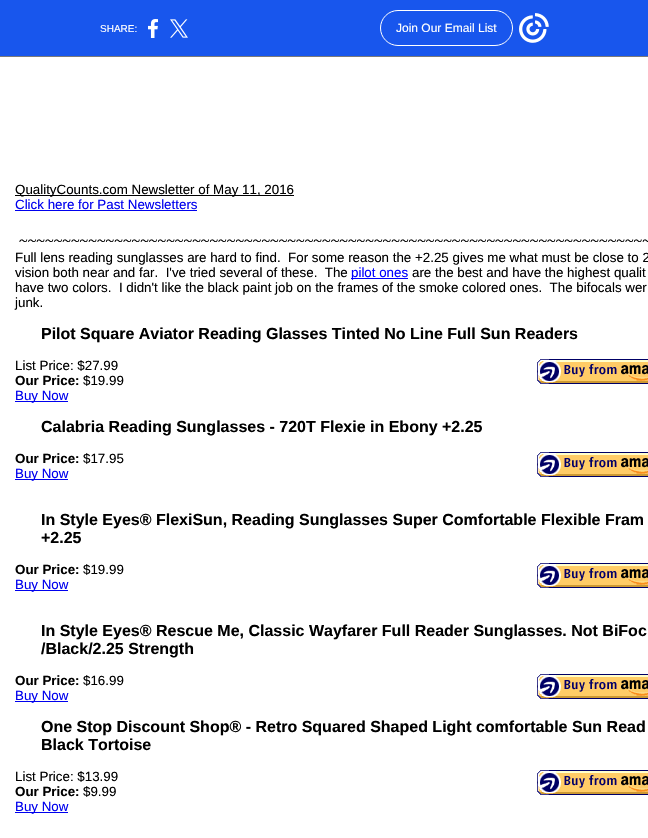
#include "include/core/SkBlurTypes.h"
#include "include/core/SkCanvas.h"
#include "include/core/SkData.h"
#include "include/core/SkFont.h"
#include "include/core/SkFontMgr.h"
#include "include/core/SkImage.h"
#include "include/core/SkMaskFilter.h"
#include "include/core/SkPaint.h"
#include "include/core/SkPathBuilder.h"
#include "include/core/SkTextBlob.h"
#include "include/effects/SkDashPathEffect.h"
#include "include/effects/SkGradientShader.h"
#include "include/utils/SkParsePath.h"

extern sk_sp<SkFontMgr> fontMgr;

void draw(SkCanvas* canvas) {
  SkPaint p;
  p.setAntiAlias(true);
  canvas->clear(SK_ColorWHITE);
  p.setColor(SkColorSetRGB(24, 86, 237));
  canvas->drawRect(SkRect::MakeLTRB(0, 0, 648, 56), p);
  p.setColor(SkColorSetRGB(122, 122, 122));
  canvas->drawRect(SkRect::MakeLTRB(0, 56, 648, 57), p);
  canvas->drawImageRect(SkImages::DeferredFromEncodedData(SkData::MakeFromFileName("images/1.png")), SkRect::MakeLTRB(148, 19, 158, 38), SkSamplingOptions());
  canvas->drawImageRect(SkImages::DeferredFromEncodedData(SkData::MakeFromFileName("images/2.png")), SkRect::MakeLTRB(170, 19, 188, 38), SkSamplingOptions());
  p.setStyle(SkPaint::kStroke_Style);
  p.setStrokeWidth(1);
  p.setColor(SK_ColorWHITE);
  canvas->drawRoundRect(SkRect::MakeLTRB(380.5f, 10.5f, 512.5f, 45.5f), 17.5f, 17.5f, p);
  canvas->drawImageRect(SkImages::DeferredFromEncodedData(SkData::MakeFromFileName("images/3.png")), SkRect::MakeLTRB(519, 13, 549, 43), SkSamplingOptions());
  p.setStyle(SkPaint::kFill_Style);
  p.setColor(SK_ColorBLACK);
  canvas->drawRect(SkRect::MakeLTRB(15, 195, 294, 196), p);
  p.setColor(SkColorSetRGB(0, 0, 238));
  canvas->drawRect(SkRect::MakeLTRB(15, 210, 197, 211), p);
  p.setColor(SkColorSetRGB(0, 0, 255));
  canvas->drawRect(SkRect::MakeLTRB(351, 278, 408, 279), p);
  canvas->drawImageRect(SkImages::DeferredFromEncodedData(SkData::MakeFromFileName("images/4.png")), SkRect::MakeLTRB(537, 359, 648, 384), SkSamplingOptions());
  p.setColor(SkColorSetRGB(0, 0, 238));
  canvas->drawRect(SkRect::MakeLTRB(15, 401, 68, 402), p);
  canvas->drawImageRect(SkImages::DeferredFromEncodedData(SkData::MakeFromFileName("images/4.png")), SkRect::MakeLTRB(537, 452, 648, 477), SkSamplingOptions());
  canvas->drawRect(SkRect::MakeLTRB(15, 479, 68, 480), p);
  canvas->drawImageRect(SkImages::DeferredFromEncodedData(SkData::MakeFromFileName("images/4.png")), SkRect::MakeLTRB(537, 563, 648, 588), SkSamplingOptions());
  canvas->drawRect(SkRect::MakeLTRB(15, 590, 68, 591), p);
  canvas->drawImageRect(SkImages::DeferredFromEncodedData(SkData::MakeFromFileName("images/4.png")), SkRect::MakeLTRB(537, 674, 648, 699), SkSamplingOptions());
  canvas->drawRect(SkRect::MakeLTRB(15, 701, 68, 702), p);
  canvas->drawImageRect(SkImages::DeferredFromEncodedData(SkData::MakeFromFileName("images/4.png")), SkRect::MakeLTRB(537, 770, 648, 795), SkSamplingOptions());
  canvas->drawRect(SkRect::MakeLTRB(15, 812, 68, 813), p);
  SkFont font1(fontMgr->matchFamilyStyle("Liberation Sans", SkFontStyle::Normal()), 10);
  font1.setSubpixel(true);
  p.setColor(SK_ColorWHITE);
  canvas->drawString("SHARE:", 100, 32, font1, p);
  SkFont font2(fontMgr->matchFamilyStyle("Liberation Sans", SkFontStyle::Normal()), 12);
  font2.setSubpixel(true);
  canvas->drawString("Join Our Email List", 396, 32, font2, p);
  SkFont font3(fontMgr->matchFamilyStyle("Liberation Sans", SkFontStyle::Normal()), 13.35f);
  font3.setSubpixel(true);
  p.setColor(SK_ColorBLACK);
  canvas->drawString("QualityCounts.com Newsletter of May 11, 2016", 15, 194, font3, p);
  p.setColor(SkColorSetRGB(0, 0, 238));
  canvas->drawString("Click here for Past Newsletters", 15, 209, font3, p);
  SkFont font4(fontMgr->matchFamilyStyle("Liberation Serif", SkFontStyle::Normal()), 16);
  font4.setSubpixel(true);
  p.setColor(SK_ColorBLACK);
  canvas->drawString("~~~~~~~~~~~~~~~~~~~~~~~~~~~~~~~~~~~~~~~~~~~~~~~~~~~~~~~~~~~~~~~~~~~~~~~~~", 19, 246, font4, p);
  canvas->drawString("Full lens reading sunglasses are hard to find.  For some reason the +2.25 gives me what must be close to 2", 15, 262, font3, p);
  canvas->drawString("vision both near and far.  I've tried several of these.  The", 15, 277, font3, p);
  p.setColor(SkColorSetRGB(0, 0, 255));
  canvas->drawString("pilot ones", 351, 277, font3, p);
  p.setColor(SK_ColorBLACK);
  canvas->drawString("are the best and have the highest qualit", 412, 277, font3, p);
  canvas->drawString("have two colors.  I didn't like the black paint job on the frames of the smoke colored ones.  The bifocals wer", 15, 292, font3, p);
  canvas->drawString("junk.", 15, 307, font3, p);
  SkFont font5(fontMgr->matchFamilyStyle("Liberation Sans", SkFontStyle::Bold()), 16);
  font5.setSubpixel(true);
  canvas->drawString("Pilot Square Aviator Reading Glasses Tinted No Line Full Sun Readers", 41, 339, font5, p);
  canvas->drawString("List Price: $27.99", 15, 370, font3, p);
  SkFont font6(fontMgr->matchFamilyStyle("Liberation Sans", SkFontStyle::Bold()), 13.35f);
  font6.setSubpixel(true);
  canvas->drawString("Our Price:", 15, 385, font6, p);
  canvas->drawString("$19.99", 83, 385, font3, p);
  p.setColor(SkColorSetRGB(0, 0, 238));
  canvas->drawString("Buy Now", 15, 400, font3, p);
  p.setColor(SK_ColorBLACK);
  canvas->drawString("Calabria Reading Sunglasses - 720T Flexie in Ebony +2.25", 41, 432, font5, p);
  canvas->drawString("Our Price:", 15, 463, font6, p);
  canvas->drawString("$17.95", 83, 463, font3, p);
  p.setColor(SkColorSetRGB(0, 0, 238));
  canvas->drawString("Buy Now", 15, 478, font3, p);
  p.setColor(SK_ColorBLACK);
  canvas->drawString("In Style Eyes® FlexiSun, Reading Sunglasses Super Comfortable Flexible Fram", 41, 525, font5, p);
  canvas->drawString("+2.25", 41, 543, font5, p);
  canvas->drawString("Our Price:", 15, 574, font6, p);
  canvas->drawString("$19.99", 83, 574, font3, p);
  p.setColor(SkColorSetRGB(0, 0, 238));
  canvas->drawString("Buy Now", 15, 589, font3, p);
  p.setColor(SK_ColorBLACK);
  canvas->drawString("In Style Eyes® Rescue Me, Classic Wayfarer Full Reader Sunglasses. Not BiFoc", 41, 636, font5, p);
  canvas->drawString("/Black/2.25 Strength", 41, 654, font5, p);
  canvas->drawString("Our Price:", 15, 685, font6, p);
  canvas->drawString("$16.99", 83, 685, font3, p);
  p.setColor(SkColorSetRGB(0, 0, 238));
  canvas->drawString("Buy Now", 15, 700, font3, p);
  p.setColor(SK_ColorBLACK);
  canvas->drawString("One Stop Discount Shop® - Retro Squared Shaped Light comfortable Sun Read", 41, 732, font5, p);
  canvas->drawString("Black Tortoise", 41, 750, font5, p);
  canvas->drawString("List Price: $13.99", 15, 781, font3, p);
  canvas->drawString("Our Price:", 15, 796, font6, p);
  canvas->drawString("$9.99", 83, 796, font3, p);
  p.setColor(SkColorSetRGB(0, 0, 238));
  canvas->drawString("Buy Now", 15, 811, font3, p);
}
